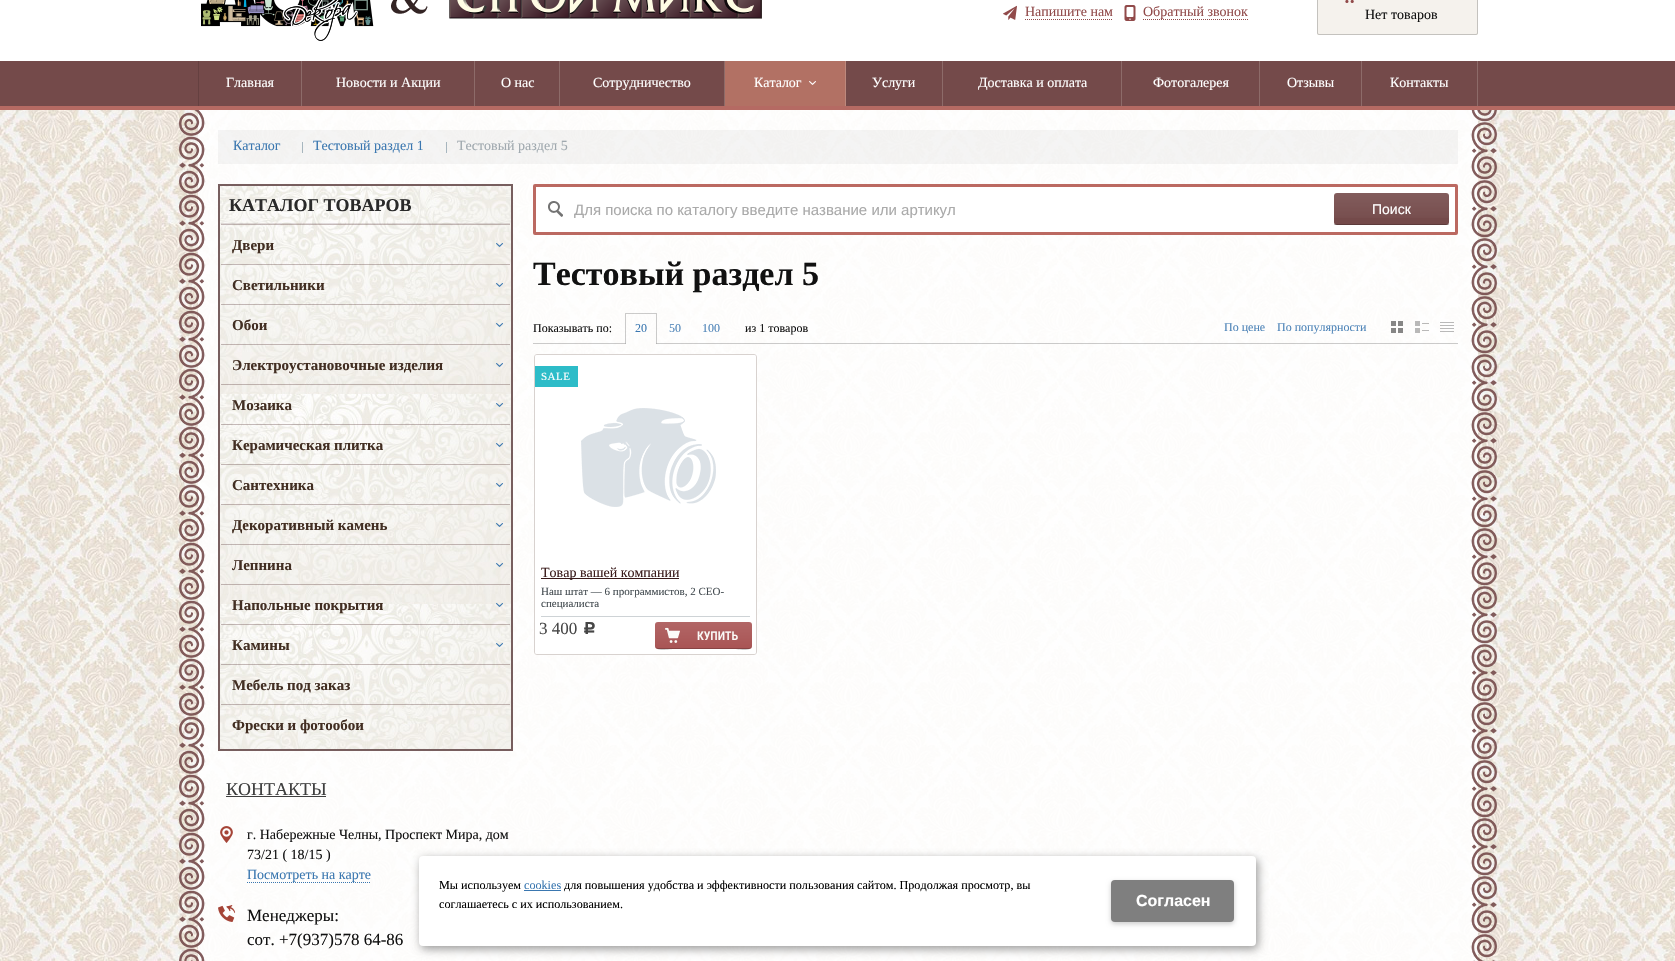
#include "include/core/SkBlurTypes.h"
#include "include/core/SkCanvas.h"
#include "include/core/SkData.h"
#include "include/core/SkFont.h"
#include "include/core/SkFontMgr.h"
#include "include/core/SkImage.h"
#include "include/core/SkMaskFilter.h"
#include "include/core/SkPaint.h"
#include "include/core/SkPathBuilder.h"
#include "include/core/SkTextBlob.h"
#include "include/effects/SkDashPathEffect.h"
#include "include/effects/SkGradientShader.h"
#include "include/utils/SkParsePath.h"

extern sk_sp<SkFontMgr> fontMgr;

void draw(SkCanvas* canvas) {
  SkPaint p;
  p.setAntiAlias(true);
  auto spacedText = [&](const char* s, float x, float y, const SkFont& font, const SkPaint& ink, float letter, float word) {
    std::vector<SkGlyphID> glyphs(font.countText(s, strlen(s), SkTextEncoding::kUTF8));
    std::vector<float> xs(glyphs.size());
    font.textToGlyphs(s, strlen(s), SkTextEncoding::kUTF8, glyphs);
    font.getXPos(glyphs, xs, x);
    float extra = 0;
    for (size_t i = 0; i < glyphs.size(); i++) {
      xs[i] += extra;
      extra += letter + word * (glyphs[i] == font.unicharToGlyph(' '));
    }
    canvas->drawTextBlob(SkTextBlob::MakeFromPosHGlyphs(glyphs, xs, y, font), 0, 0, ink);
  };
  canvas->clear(SK_ColorWHITE);
  canvas->drawImageRect(SkImages::DeferredFromEncodedData(SkData::MakeFromFileName("images/1.png")), SkRect::MakeLTRB(0, 110, 1675, 961), SkSamplingOptions());
  canvas->drawImageRect(SkImages::DeferredFromEncodedData(SkData::MakeFromFileName("images/2.png")), SkRect::MakeLTRB(201, 0, 762, 41), SkSamplingOptions());
  canvas->drawImageRect(SkImages::DeferredFromEncodedData(SkData::MakeFromFileName("images/3.png")), SkRect::MakeLTRB(1003, 5, 1017, 20), SkSamplingOptions());
  p.setStyle(SkPaint::kStroke_Style);
  p.setStrokeWidth(1);
  p.setColor(SkColorSetRGB(145, 74, 74));
  p.setPathEffect(SkDashPathEffect::Make({{1, 1}}, 0));
  canvas->drawPath(SkPathBuilder().moveTo(1025, 19.5f).lineTo(1113, 19.5f).detach(), p);
  p.setPathEffect(nullptr);
  canvas->drawImageRect(SkImages::DeferredFromEncodedData(SkData::MakeFromFileName("images/4.png")), SkRect::MakeLTRB(1124, 5, 1136, 21), SkSamplingOptions());
  p.setPathEffect(SkDashPathEffect::Make({{1, 1}}, 0));
  canvas->drawPath(SkPathBuilder().moveTo(1143, 19.5f).lineTo(1248, 19.5f).detach(), p);
  p.setPathEffect(nullptr);
  p.setStyle(SkPaint::kFill_Style);
  p.setColor(SkColorSetRGB(245, 242, 237));
  canvas->drawRect(SkRect::MakeLTRB(1317, 0, 1478, 35), p);
  p.setStyle(SkPaint::kStroke_Style);
  p.setColor(SkColorSetRGB(196, 194, 190));
  canvas->drawRoundRect(SkRect::MakeLTRB(1317.5f, -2.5f, 1477.5f, 34.5f), 1.5f, 1.5f, p);
  canvas->drawImageRect(SkImages::DeferredFromEncodedData(SkData::MakeFromFileName("images/5.png")), SkRect::MakeLTRB(1345, 0, 1354, 3), SkSamplingOptions());
  p.setStyle(SkPaint::kFill_Style);
  p.setColor(SkColorSetRGB(116, 74, 74));
  canvas->drawRect(SkRect::MakeLTRB(0, 61, 1675, 106), p);
  p.setColor(SkColorSetRGB(181, 106, 99));
  canvas->drawRect(SkRect::MakeLTRB(0, 106, 1675, 110), p);
  p.setColor(SkColorSetRGB(101, 64, 64));
  canvas->drawRect(SkRect::MakeLTRB(198, 61, 199, 106), p);
  p.setColor(SkColorSetRGB(141, 107, 105));
  canvas->drawRect(SkRect::MakeLTRB(301, 61, 302, 106), p);
  canvas->drawRect(SkRect::MakeLTRB(474, 61, 475, 106), p);
  canvas->drawRect(SkRect::MakeLTRB(559, 61, 560, 106), p);
  canvas->drawRect(SkRect::MakeLTRB(724, 61, 725, 106), p);
  p.setColor(SkColorSetRGB(178, 113, 100));
  canvas->drawRect(SkRect::MakeLTRB(725, 61, 845, 106), p);
  p.setColor(SkColorSetRGB(189, 137, 125));
  canvas->drawRect(SkRect::MakeLTRB(845, 61, 846, 106), p);
  canvas->drawImageRect(SkImages::DeferredFromEncodedData(SkData::MakeFromFileName("images/6.png")), SkRect::MakeLTRB(809, 81, 816, 85), SkSamplingOptions());
  p.setColor(SkColorSetRGB(141, 107, 105));
  canvas->drawRect(SkRect::MakeLTRB(942, 61, 943, 106), p);
  canvas->drawRect(SkRect::MakeLTRB(1121, 61, 1122, 106), p);
  canvas->drawRect(SkRect::MakeLTRB(1259, 61, 1260, 106), p);
  canvas->drawRect(SkRect::MakeLTRB(1361, 61, 1362, 106), p);
  canvas->drawRect(SkRect::MakeLTRB(1477, 61, 1478, 106), p);
  p.setColor(SkColorSetARGB(230, 255, 255, 255));
  canvas->drawRect(SkRect::MakeLTRB(198, 110, 1478, 961), p);
  canvas->drawImageRect(SkImages::DeferredFromEncodedData(SkData::MakeFromFileName("images/7.png")), SkRect::MakeLTRB(178, 110, 206, 961), SkSamplingOptions());
  p.setColor(SkColorSetARGB(10, 0, 0, 0));
  canvas->drawRect(SkRect::MakeLTRB(218, 130, 1458, 164), p);
  p.setColor(SkColorSetARGB(140, 104, 131, 148));
  canvas->drawRect(SkRect::MakeLTRB(302, 142, 303, 153), p);
  canvas->drawRect(SkRect::MakeLTRB(446, 142, 447, 153), p);
  canvas->drawImageRect(SkImages::DeferredFromEncodedData(SkData::MakeFromFileName("images/8.png")), SkRect::MakeLTRB(220, 186, 511, 749), SkSamplingOptions());
  p.setStyle(SkPaint::kStroke_Style);
  p.setStrokeWidth(2);
  p.setColor(SkColorSetRGB(119, 94, 94));
  canvas->drawRect(SkRect::MakeLTRB(219, 185, 512, 750), p);
  p.setStyle(SkPaint::kFill_Style);
  p.setColor(SkColorSetARGB(51, 119, 94, 94));
  canvas->drawRect(SkRect::MakeLTRB(221, 223, 510, 224), p);
  p.setColor(SkColorSetARGB(92, 101, 68, 68));
  canvas->drawRect(SkRect::MakeLTRB(221, 224, 510, 225), p);
  canvas->drawImageRect(SkImages::DeferredFromEncodedData(SkData::MakeFromFileName("images/9.png")), SkRect::MakeLTRB(496, 243, 503, 247), SkSamplingOptions());
  canvas->drawRect(SkRect::MakeLTRB(221, 264, 510, 265), p);
  canvas->drawImageRect(SkImages::DeferredFromEncodedData(SkData::MakeFromFileName("images/10.png")), SkRect::MakeLTRB(496, 283, 503, 287), SkSamplingOptions());
  canvas->drawRect(SkRect::MakeLTRB(221, 304, 510, 305), p);
  canvas->drawImageRect(SkImages::DeferredFromEncodedData(SkData::MakeFromFileName("images/11.png")), SkRect::MakeLTRB(496, 323, 503, 327), SkSamplingOptions());
  canvas->drawRect(SkRect::MakeLTRB(221, 344, 510, 345), p);
  canvas->drawImageRect(SkImages::DeferredFromEncodedData(SkData::MakeFromFileName("images/12.png")), SkRect::MakeLTRB(496, 363, 503, 367), SkSamplingOptions());
  canvas->drawRect(SkRect::MakeLTRB(221, 384, 510, 385), p);
  canvas->drawImageRect(SkImages::DeferredFromEncodedData(SkData::MakeFromFileName("images/13.png")), SkRect::MakeLTRB(496, 403, 503, 407), SkSamplingOptions());
  canvas->drawRect(SkRect::MakeLTRB(221, 424, 510, 425), p);
  canvas->drawImageRect(SkImages::DeferredFromEncodedData(SkData::MakeFromFileName("images/14.png")), SkRect::MakeLTRB(496, 443, 503, 447), SkSamplingOptions());
  canvas->drawRect(SkRect::MakeLTRB(221, 464, 510, 465), p);
  canvas->drawImageRect(SkImages::DeferredFromEncodedData(SkData::MakeFromFileName("images/15.png")), SkRect::MakeLTRB(496, 483, 503, 487), SkSamplingOptions());
  canvas->drawRect(SkRect::MakeLTRB(221, 504, 510, 505), p);
  canvas->drawImageRect(SkImages::DeferredFromEncodedData(SkData::MakeFromFileName("images/16.png")), SkRect::MakeLTRB(496, 523, 503, 527), SkSamplingOptions());
  canvas->drawRect(SkRect::MakeLTRB(221, 544, 510, 545), p);
  canvas->drawImageRect(SkImages::DeferredFromEncodedData(SkData::MakeFromFileName("images/17.png")), SkRect::MakeLTRB(496, 563, 503, 567), SkSamplingOptions());
  canvas->drawRect(SkRect::MakeLTRB(221, 584, 510, 585), p);
  canvas->drawImageRect(SkImages::DeferredFromEncodedData(SkData::MakeFromFileName("images/18.png")), SkRect::MakeLTRB(496, 603, 503, 607), SkSamplingOptions());
  canvas->drawRect(SkRect::MakeLTRB(221, 624, 510, 625), p);
  canvas->drawImageRect(SkImages::DeferredFromEncodedData(SkData::MakeFromFileName("images/19.png")), SkRect::MakeLTRB(496, 643, 503, 647), SkSamplingOptions());
  canvas->drawRect(SkRect::MakeLTRB(221, 664, 510, 665), p);
  canvas->drawRect(SkRect::MakeLTRB(221, 704, 510, 705), p);
  p.setColor(SkColorSetRGB(63, 63, 63));
  canvas->drawRect(SkRect::MakeLTRB(226, 796, 326, 797), p);
  canvas->drawImageRect(SkImages::DeferredFromEncodedData(SkData::MakeFromFileName("images/20.png")), SkRect::MakeLTRB(220, 826, 233, 843), SkSamplingOptions());
  p.setStyle(SkPaint::kStroke_Style);
  p.setStrokeWidth(1);
  p.setColor(SkColorSetRGB(58, 119, 176));
  p.setPathEffect(SkDashPathEffect::Make({{1, 1}}, 0));
  canvas->drawPath(SkPathBuilder().moveTo(247, 882.5f).lineTo(371, 882.5f).detach(), p);
  p.setPathEffect(nullptr);
  canvas->drawImageRect(SkImages::DeferredFromEncodedData(SkData::MakeFromFileName("images/21.png")), SkRect::MakeLTRB(218, 905, 236, 922), SkSamplingOptions());
  p.setStyle(SkPaint::kFill_Style);
  p.setColor(SK_ColorWHITE);
  canvas->drawRoundRect(SkRect::MakeLTRB(534.5f, 185.5f, 1456.5f, 233.5f), 0.5f, 0.5f, p);
  p.setStyle(SkPaint::kStroke_Style);
  p.setStrokeWidth(3);
  p.setColor(SkColorSetRGB(187, 105, 97));
  canvas->drawRoundRect(SkRect::MakeLTRB(534.5f, 185.5f, 1456.5f, 233.5f), 0.5f, 0.5f, p);
  canvas->drawImageRect(SkImages::DeferredFromEncodedData(SkData::MakeFromFileName("images/22.png")), SkRect::MakeLTRB(548, 201, 563, 217), SkSamplingOptions());
  p.setStyle(SkPaint::kFill_Style);
  p.setColor(SkColorSetRGB(116, 74, 74));
  canvas->drawRoundRect(SkRect::MakeLTRB(1334, 193, 1449, 225), 3, 3, p);
  {
    const SkColor colors[] = {SkColorSetARGB(26, 255, 255, 255), SkColorSetARGB(0, 255, 255, 255)};
    const float stops[] = {0, 1};
    const SkPoint ends[] = {{1392, 193}, {1392, 225}};
    p.setShader(SkGradientShader::MakeLinear(ends, colors, stops, 2, SkTileMode::kClamp));
    p.setAlpha(255);
  }
  canvas->drawRect(SkRect::MakeLTRB(1334, 193, 1449, 218), p);
  p.setShader(nullptr);
  p.setColor(SkColorSetARGB(51, 0, 0, 0));
  canvas->drawRect(SkRect::MakeLTRB(1334, 224, 1449, 225), p);
  canvas->drawPath(SkPathBuilder().moveTo(625, 313).lineTo(657, 313).lineTo(656, 314).lineTo(626, 314).close().detach(), p);
  canvas->drawPath(SkPathBuilder().moveTo(657, 313).lineTo(657, 344).lineTo(656, 343).lineTo(656, 314).close().moveTo(625, 344).lineTo(625, 313).lineTo(626, 314).lineTo(626, 343).close().detach(), p);
  canvas->drawRect(SkRect::MakeLTRB(533, 343, 626, 344), p);
  canvas->drawRect(SkRect::MakeLTRB(656, 343, 1458, 344), p);
  canvas->drawImageRect(SkImages::DeferredFromEncodedData(SkData::MakeFromFileName("images/23.png")), SkRect::MakeLTRB(1391, 321, 1403, 333), SkSamplingOptions());
  canvas->drawImageRect(SkImages::DeferredFromEncodedData(SkData::MakeFromFileName("images/24.png")), SkRect::MakeLTRB(1415, 321, 1429, 333), SkSamplingOptions());
  canvas->drawImageRect(SkImages::DeferredFromEncodedData(SkData::MakeFromFileName("images/25.png")), SkRect::MakeLTRB(1440, 322, 1454, 332), SkSamplingOptions());
  p.setStyle(SkPaint::kStroke_Style);
  p.setStrokeWidth(1);
  p.setColor(SkColorSetRGB(216, 210, 207));
  canvas->drawRoundRect(SkRect::MakeLTRB(534.5f, 354.5f, 756.5f, 654.5f), 2.5f, 2.5f, p);
  p.setStyle(SkPaint::kFill_Style);
  p.setColor(SK_ColorWHITE);
  canvas->drawRoundRect(SkRect::MakeLTRB(535, 355, 756, 654), 2, 2, p);
  p.setColor(SkColorSetRGB(45, 188, 200));
  canvas->drawRect(SkRect::MakeLTRB(535, 366, 578, 387), p);
  canvas->drawImageRect(SkImages::DeferredFromEncodedData(SkData::MakeFromFileName("images/26.png")), SkRect::MakeLTRB(581, 408, 716, 507), SkSamplingOptions());
  p.setColor(SkColorSetRGB(206, 211, 214));
  canvas->drawRect(SkRect::MakeLTRB(541, 616, 750, 617), p);
  p.setColor(SkColorSetRGB(56, 26, 26));
  canvas->drawRect(SkRect::MakeLTRB(541, 578, 679, 579), p);
  p.setColor(SkColorSetRGB(169, 84, 84));
  canvas->drawRoundRect(SkRect::MakeLTRB(655, 622, 752, 649), 3, 3, p);
  {
    const SkColor colors[] = {SkColorSetARGB(26, 255, 255, 255), SkColorSetARGB(0, 255, 255, 255)};
    const float stops[] = {0, 1};
    const SkPoint ends[] = {{704, 622}, {704, 649}};
    p.setShader(SkGradientShader::MakeLinear(ends, colors, stops, 2, SkTileMode::kClamp));
    p.setAlpha(255);
  }
  canvas->drawRoundRect(SkRect::MakeLTRB(655, 622, 752, 649), 3, 3, p);
  canvas->drawImageRect(SkImages::DeferredFromEncodedData(SkData::MakeFromFileName("images/27.png")), SkRect::MakeLTRB(665, 627, 680, 643), SkSamplingOptions());
  p.setShader(nullptr);
  p.setColor(SkColorSetARGB(51, 0, 0, 0));
  canvas->drawPath(SkPathBuilder().moveTo(655, 645).cubicTo(655, 653, 670, 649, 673, 649).lineTo(734, 649).cubicTo(737, 649, 752, 653, 752, 645).cubicTo(752, 647, 751, 648, 749, 648).lineTo(658, 648).cubicTo(656, 648, 655, 647, 655, 645).close().detach(), p);
  canvas->drawImageRect(SkImages::DeferredFromEncodedData(SkData::MakeFromFileName("images/28.png")), SkRect::MakeLTRB(1470, 110, 1498, 961), SkSamplingOptions());
  p.setColor(SkColorSetARGB(102, 0, 0, 0));
  p.setMaskFilter(SkMaskFilter::MakeBlur(kNormal_SkBlurStyle, 5));
  canvas->drawRoundRect(SkRect::MakeLTRB(421, 859, 1258, 949), 4, 4, p);
  p.setMaskFilter(nullptr);
  p.setColor(SK_ColorWHITE);
  canvas->drawRoundRect(SkRect::MakeLTRB(419, 856, 1256, 946), 4, 4, p);
  p.setColor(SkColorSetRGB(58, 119, 176));
  canvas->drawRect(SkRect::MakeLTRB(524, 890, 561, 891), p);
  p.setColor(SkColorSetARGB(51, 0, 0, 0));
  p.setMaskFilter(SkMaskFilter::MakeBlur(kNormal_SkBlurStyle, 2.5f));
  canvas->drawRoundRect(SkRect::MakeLTRB(1111, 882, 1234, 924), 4, 4, p);
  p.setMaskFilter(nullptr);
  p.setColor(SkColorSetRGB(127, 127, 127));
  canvas->drawRoundRect(SkRect::MakeLTRB(1111, 880, 1234, 922), 4, 4, p);
  SkFont font1(fontMgr->matchFamilyStyle("Liberation Serif", SkFontStyle::Normal()), 14);
  font1.setSubpixel(true);
  p.setColor(SkColorSetRGB(145, 74, 74));
  canvas->drawString("Напишите нам", 1025, 16, font1, p);
  canvas->drawString("Обратный звонок", 1143, 16, font1, p);
  p.setColor(SkColorSetRGB(17, 17, 17));
  canvas->drawString("Нет товаров", 1365, 19, font1, p);
  p.setColor(SK_ColorWHITE);
  canvas->drawString("Главная", 226, 87, font1, p);
  canvas->drawString("Новости и Акции", 336, 87, font1, p);
  canvas->drawString("О нас", 501, 87, font1, p);
  canvas->drawString("Сотрудничество", 593, 87, font1, p);
  canvas->drawString("Каталог", 754, 87, font1, p);
  canvas->drawString("Услуги", 872, 87, font1, p);
  canvas->drawString("Доставка и оплата", 978, 87, font1, p);
  canvas->drawString("Фотогалерея", 1153, 87, font1, p);
  canvas->drawString("Отзывы", 1287, 87, font1, p);
  canvas->drawString("Контакты", 1390, 87, font1, p);
  p.setColor(SkColorSetRGB(58, 119, 176));
  canvas->drawString("Каталог", 233, 150, font1, p);
  canvas->drawString("Тестовый раздел 1", 313, 150, font1, p);
  p.setColor(SkColorSetRGB(160, 169, 175));
  canvas->drawString("Тестовый раздел 5", 457, 150, font1, p);
  SkFont font2(fontMgr->matchFamilyStyle("Liberation Serif", SkFontStyle::Bold()), 18);
  font2.setSubpixel(true);
  p.setColor(SkColorSetRGB(42, 42, 42));
  canvas->drawString("КАТАЛОГ ТОВАРОВ", 229, 211, font2, p);
  SkFont font3(fontMgr->matchFamilyStyle("Liberation Serif", SkFontStyle::Bold()), 15);
  font3.setSubpixel(true);
  p.setColor(SkColorSetRGB(66, 46, 34));
  canvas->drawString("Двери", 232, 250, font3, p);
  canvas->drawString("Светильники", 232, 290, font3, p);
  canvas->drawString("Обои", 232, 330, font3, p);
  canvas->drawString("Электроустановочные изделия", 232, 370, font3, p);
  canvas->drawString("Мозаика", 232, 410, font3, p);
  canvas->drawString("Керамическая плитка", 232, 450, font3, p);
  canvas->drawString("Сантехника", 232, 490, font3, p);
  canvas->drawString("Декоративный камень", 232, 530, font3, p);
  canvas->drawString("Лепнина", 232, 570, font3, p);
  canvas->drawString("Напольные покрытия", 232, 610, font3, p);
  canvas->drawString("Камины", 232, 650, font3, p);
  canvas->drawString("Мебель под заказ", 232, 690, font3, p);
  canvas->drawString("Фрески и фотообои", 232, 730, font3, p);
  SkFont font4(fontMgr->matchFamilyStyle("Liberation Serif", SkFontStyle::Normal()), 18);
  font4.setSubpixel(true);
  p.setColor(SkColorSetRGB(63, 63, 63));
  canvas->drawString("КОНТАКТЫ", 226, 795, font4, p);
  p.setColor(SkColorSetRGB(17, 17, 17));
  canvas->drawString("г. Набережные Челны, Проспект Мира, дом", 247, 839, font1, p);
  canvas->drawString("73/21 ( 18/15 )", 247, 859, font1, p);
  p.setColor(SkColorSetRGB(58, 119, 176));
  canvas->drawString("Посмотреть на карте", 247, 879, font1, p);
  SkFont font5(fontMgr->matchFamilyStyle("Liberation Serif", SkFontStyle::Normal()), 17);
  font5.setSubpixel(true);
  p.setColor(SkColorSetRGB(17, 17, 17));
  canvas->drawString("Менеджеры:", 247, 921, font5, p);
  canvas->drawString("сот. +7(937)578 64-86", 247, 945, font5, p);
  canvas->save();
  canvas->clipRect(SkRect::MakeLTRB(574, 201, 1289, 218));
  SkFont font6(fontMgr->matchFamilyStyle("Liberation Sans", SkFontStyle::Normal()), 15);
  font6.setSubpixel(true);
  p.setColor(SkColorSetRGB(170, 170, 170));
  canvas->drawString("Для поиска по каталогу введите название или артикул", 574, 215, font6, p);
  canvas->restore();
  SkFont font7(fontMgr->matchFamilyStyle("Liberation Sans", SkFontStyle::Normal()), 14);
  font7.setSubpixel(true);
  p.setColor(SK_ColorWHITE);
  canvas->drawString("Поиск", 1372, 214, font7, p);
  SkFont font8(fontMgr->matchFamilyStyle("Liberation Serif", SkFontStyle::Bold()), 34);
  font8.setSubpixel(true);
  p.setColor(SkColorSetRGB(17, 17, 17));
  canvas->drawString("Тестовый раздел 5", 533, 285, font8, p);
  SkFont font9(fontMgr->matchFamilyStyle("Liberation Serif", SkFontStyle::Normal()), 12);
  font9.setSubpixel(true);
  canvas->drawString("Показывать по:", 533, 332, font9, p);
  p.setColor(SkColorSetRGB(58, 119, 176));
  canvas->drawString("20", 635, 332, font9, p);
  p.setColor(SkColorSetRGB(78, 132, 184));
  canvas->drawString("50", 669, 332, font9, p);
  canvas->drawString("100", 702, 332, font9, p);
  p.setColor(SkColorSetRGB(17, 17, 17));
  canvas->drawString("из 1 товаров", 745, 332, font9, p);
  p.setColor(SkColorSetRGB(78, 132, 184));
  canvas->drawString("По цене", 1224, 331, font9, p);
  canvas->drawString("По популярности", 1277, 331, font9, p);
  SkFont font10(fontMgr->matchFamilyStyle("Liberation Serif", SkFontStyle::Normal()), 11);
  font10.setSubpixel(true);
  p.setColor(SK_ColorWHITE);
  spacedText("SALE", 541, 380, font10, p, 0.5f, 0);
  p.setColor(SkColorSetRGB(56, 26, 26));
  canvas->drawString("Товар вашей компании", 541, 577, font1, p);
  p.setColor(SkColorSetRGB(68, 76, 81));
  canvas->drawString("Наш штат — 6 программистов, 2 СЕО-", 541, 595, font10, p);
  canvas->drawString("специалиста", 541, 607, font10, p);
  p.setColor(SkColorSetRGB(70, 70, 70));
  canvas->drawString("3 400", 539, 634, font5, p);
  SkFont font11(fontMgr->matchFamilyStyle("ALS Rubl", SkFontStyle::Normal()), 17);
  font11.setSubpixel(true);
  canvas->drawString("c", 583, 634, font11, p);
  SkFont font12(fontMgr->matchFamilyStyle("Roboto Condensed", SkFontStyle(500, SkFontStyle::kNormal_Width, SkFontStyle::kUpright_Slant)), 12);
  font12.setSubpixel(true);
  p.setColor(SkColorSetRGB(251, 251, 248));
  canvas->drawString("КУПИТЬ", 697, 640, font12, p);
  SkFont font13(fontMgr->matchFamilyStyle("Liberation Serif", SkFontStyle::Normal()), 12.15f);
  font13.setSubpixel(true);
  p.setColor(SK_ColorBLACK);
  canvas->drawString("Мы используем", 439, 889, font13, p);
  p.setColor(SkColorSetRGB(58, 119, 176));
  canvas->drawString("cookies", 524, 889, font13, p);
  p.setColor(SK_ColorBLACK);
  canvas->drawString("для повышения удобства и эффективности пользования сайтом. Продолжая просмотр, вы", 564, 889, font13, p);
  canvas->drawString("соглашаетесь с их использованием.", 439, 908, font13, p);
  SkFont font14(fontMgr->matchFamilyStyle("Liberation Sans", SkFontStyle::Bold()), 16);
  font14.setSubpixel(true);
  p.setColor(SK_ColorWHITE);
  canvas->drawString("Cогласен", 1136, 906, font14, p);
}
